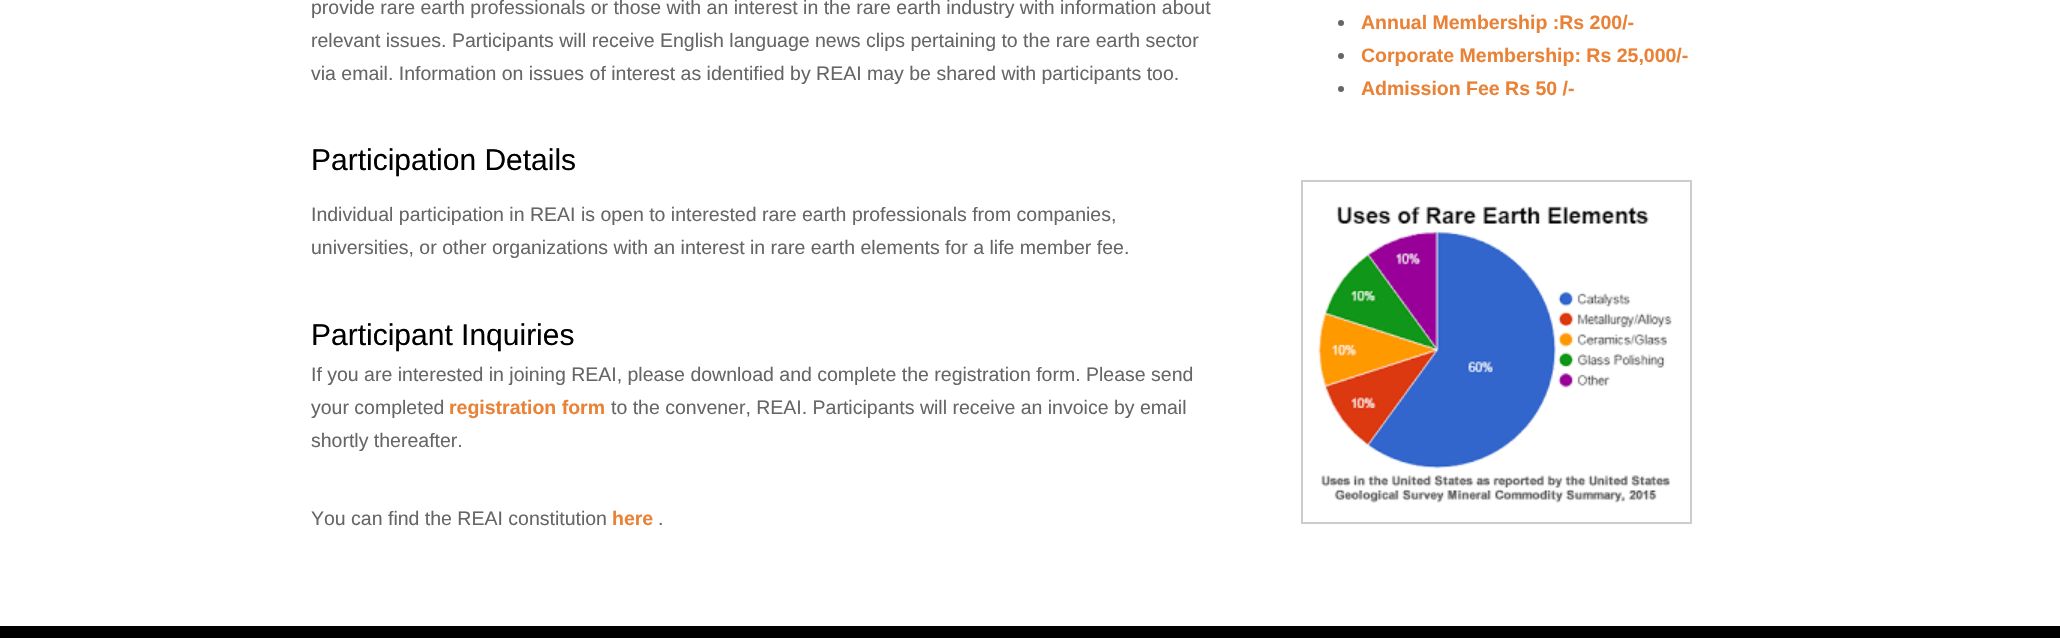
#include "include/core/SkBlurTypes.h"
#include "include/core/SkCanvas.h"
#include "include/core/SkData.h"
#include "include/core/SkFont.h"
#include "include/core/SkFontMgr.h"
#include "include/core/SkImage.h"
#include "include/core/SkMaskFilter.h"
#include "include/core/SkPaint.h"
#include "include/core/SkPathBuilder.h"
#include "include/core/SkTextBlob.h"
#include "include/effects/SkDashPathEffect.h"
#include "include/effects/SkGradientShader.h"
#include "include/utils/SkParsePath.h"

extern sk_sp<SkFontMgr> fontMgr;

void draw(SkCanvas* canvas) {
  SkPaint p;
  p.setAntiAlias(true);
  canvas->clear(SK_ColorWHITE);
  p.setColor(SkColorSetRGB(102, 102, 102));
  canvas->drawCircle(1341, 23, 3, p);
  canvas->drawCircle(1341, 56, 3, p);
  canvas->drawCircle(1341, 89, 3, p);
  p.setStyle(SkPaint::kStroke_Style);
  p.setStrokeWidth(2);
  p.setColor(SkColorSetRGB(204, 204, 204));
  canvas->drawRect(SkRect::MakeLTRB(1302, 181, 1691, 523), p);
  canvas->drawImageRect(SkImages::DeferredFromEncodedData(SkData::MakeFromFileName("images/1.png")), SkRect::MakeLTRB(1318, 206, 1672, 503), SkSamplingOptions());
  p.setStyle(SkPaint::kFill_Style);
  p.setColor(SK_ColorBLACK);
  canvas->drawRect(SkRect::MakeLTRB(0, 626, 2060, 638), p);
  SkFont font1(fontMgr->matchFamilyStyle("Liberation Sans", SkFontStyle::Normal()), 19.5f);
  font1.setSubpixel(true);
  p.setColor(SkColorSetRGB(102, 102, 102));
  canvas->drawString("provide rare earth professionals or those with an interest in the rare earth industry with information about", 311, 14, font1, p);
  canvas->drawString("relevant issues. Participants will receive English language news clips pertaining to the rare earth sector", 311, 47, font1, p);
  canvas->drawString("via email. Information on issues of interest as identified by REAI may be shared with participants too.", 311, 80, font1, p);
  SkFont font2(fontMgr->matchFamilyStyle("Liberation Sans", SkFontStyle::Normal()), 30);
  font2.setSubpixel(true);
  p.setColor(SK_ColorBLACK);
  canvas->drawString("Participation Details", 311, 170, font2, p);
  p.setColor(SkColorSetRGB(102, 102, 102));
  canvas->drawString("Individual participation in REAI is open to interested rare earth professionals from companies,", 311, 221, font1, p);
  canvas->drawString("universities, or other organizations with an interest in rare earth elements for a life member fee.", 311, 254, font1, p);
  p.setColor(SK_ColorBLACK);
  canvas->drawString("Participant Inquiries", 311, 345, font2, p);
  p.setColor(SkColorSetRGB(102, 102, 102));
  canvas->drawString("If you are interested in joining REAI, please download and complete the registration form. Please send", 311, 381, font1, p);
  canvas->drawString("your completed", 311, 414, font1, p);
  SkFont font3(fontMgr->matchFamilyStyle("Liberation Sans", SkFontStyle::Bold()), 19.5f);
  font3.setSubpixel(true);
  p.setColor(SkColorSetRGB(233, 130, 54));
  canvas->drawString("registration form", 449, 414, font3, p);
  p.setColor(SkColorSetRGB(102, 102, 102));
  canvas->drawString("to the convener, REAI. Participants will receive an invoice by email", 611, 414, font1, p);
  canvas->drawString("shortly thereafter.", 311, 447, font1, p);
  canvas->drawString("You can find the REAI constitution", 311, 525, font1, p);
  p.setColor(SkColorSetRGB(233, 130, 54));
  canvas->drawString("here", 612, 525, font3, p);
  p.setColor(SkColorSetRGB(102, 102, 102));
  canvas->drawString(".", 658, 525, font1, p);
  p.setColor(SkColorSetRGB(233, 130, 54));
  canvas->drawString("Annual Membership :Rs 200/-", 1361, 29, font3, p);
  canvas->drawString("Corporate Membership: Rs 25,000/-", 1361, 62, font3, p);
  canvas->drawString("Admission Fee Rs 50 /-", 1361, 95, font3, p);
}
